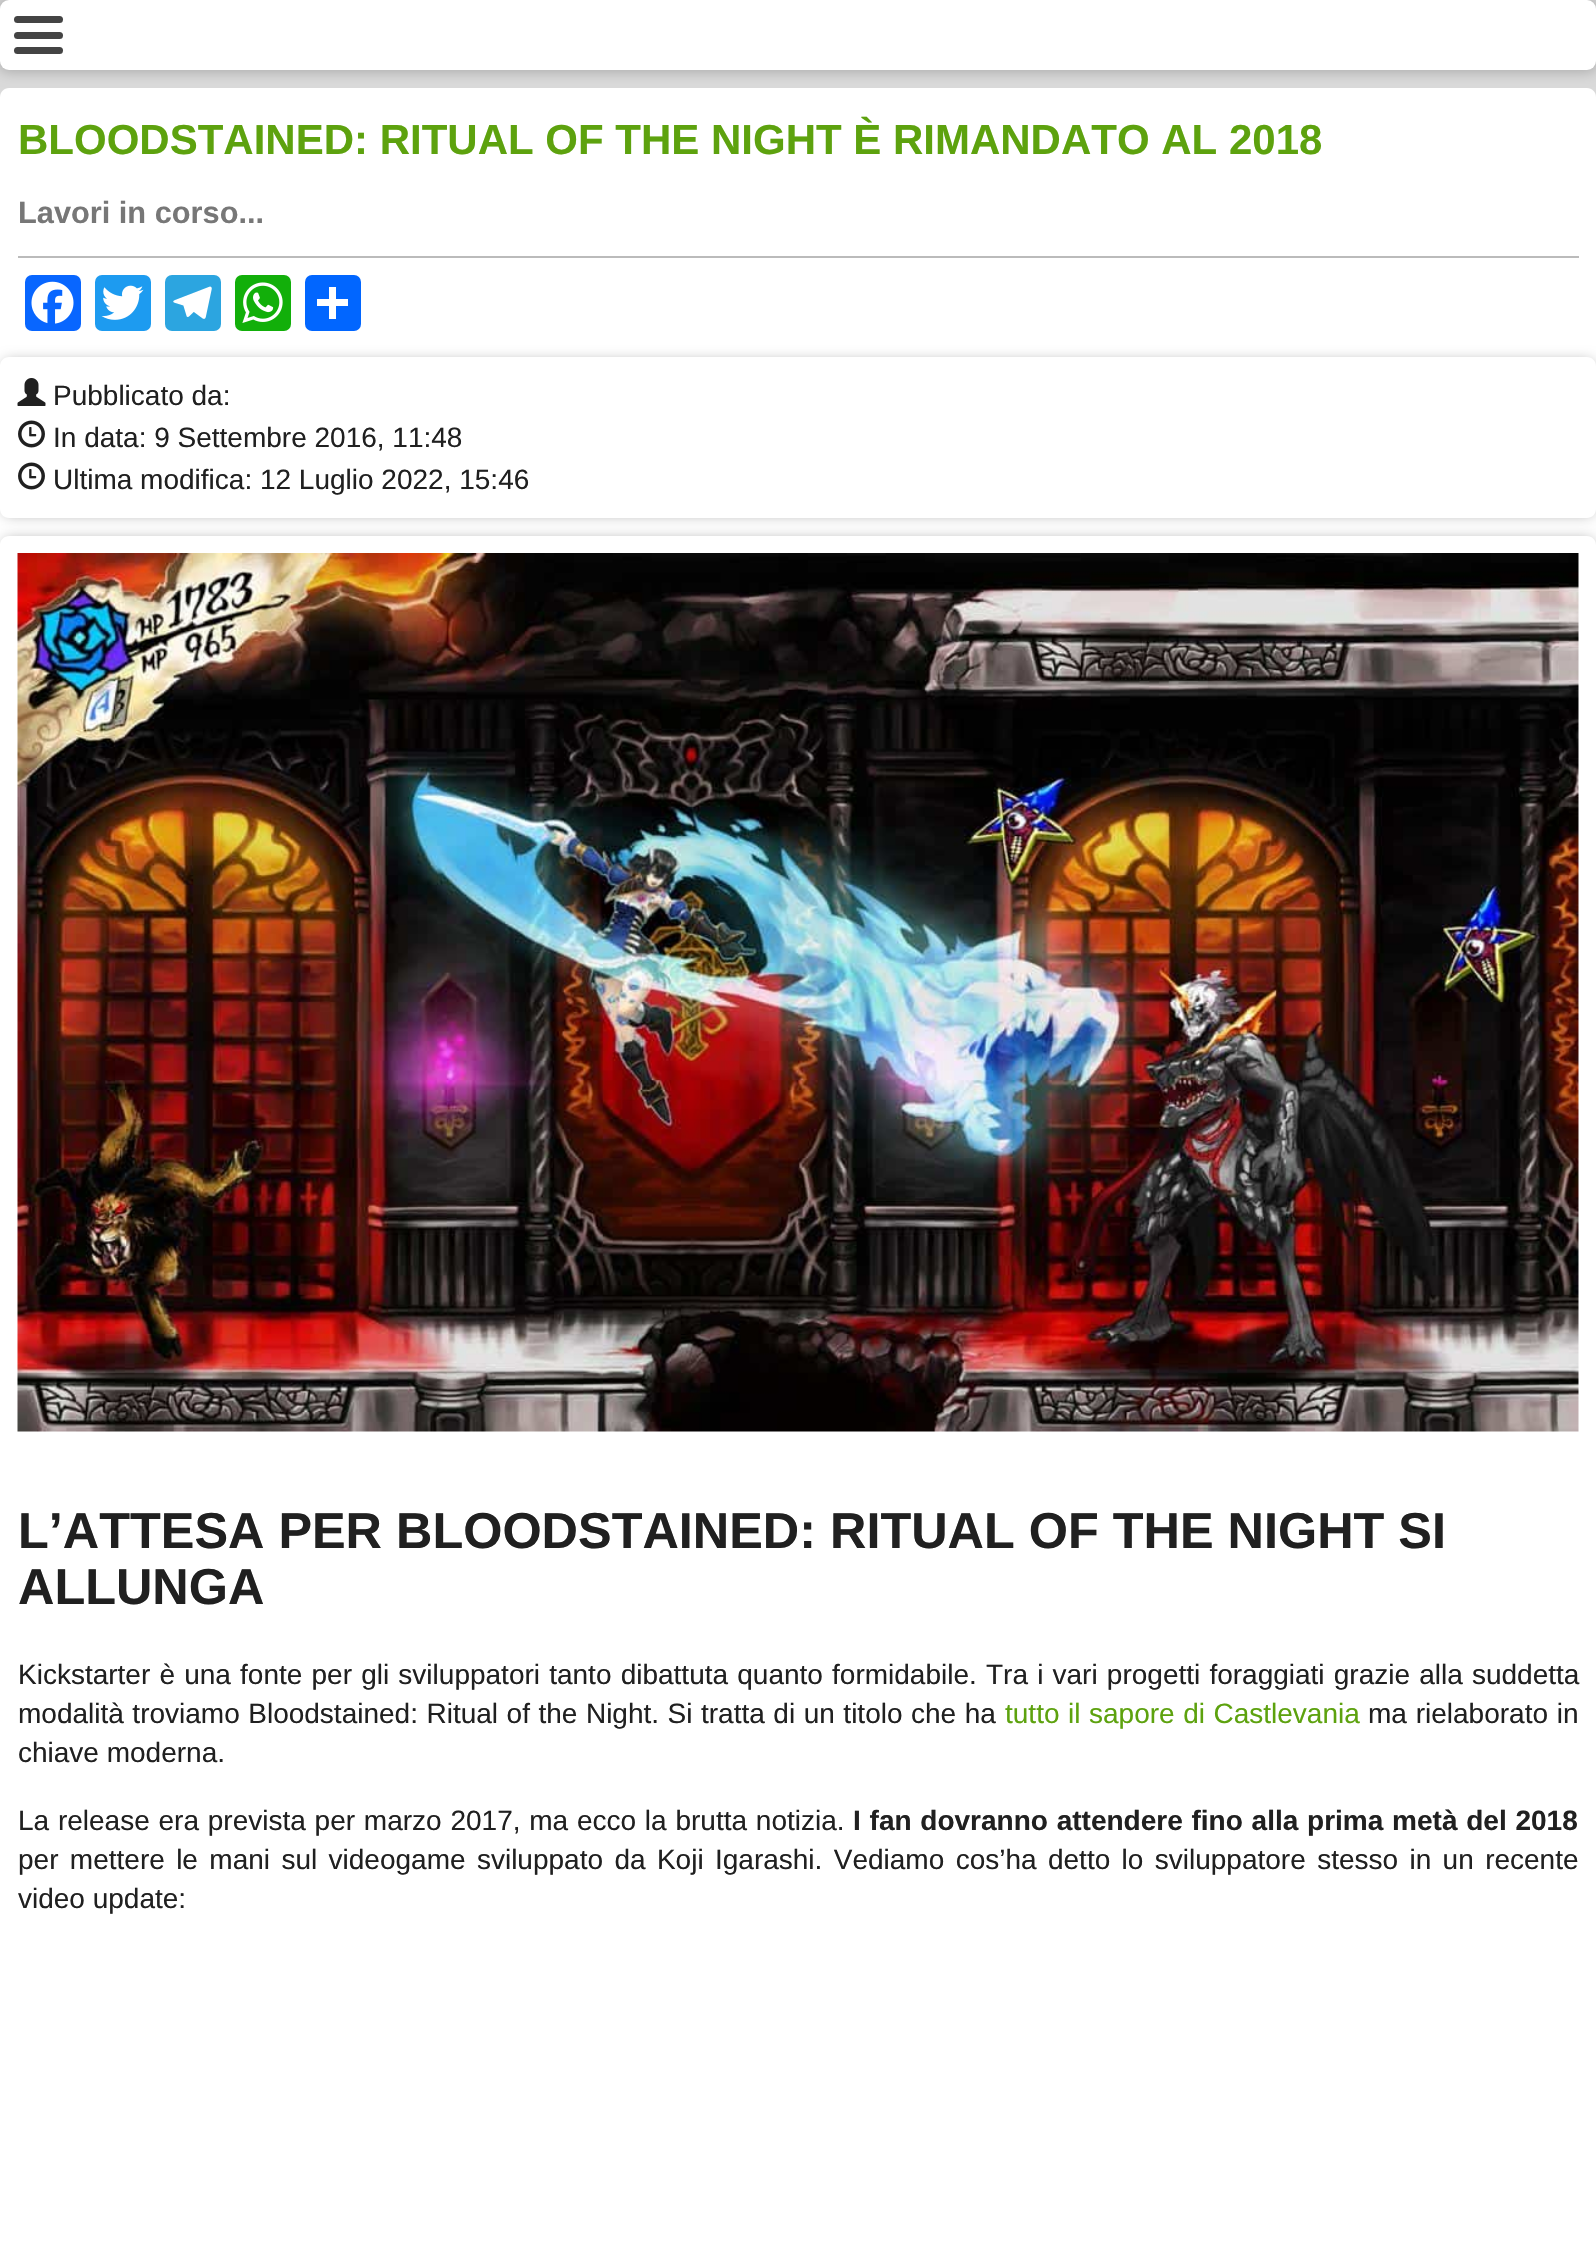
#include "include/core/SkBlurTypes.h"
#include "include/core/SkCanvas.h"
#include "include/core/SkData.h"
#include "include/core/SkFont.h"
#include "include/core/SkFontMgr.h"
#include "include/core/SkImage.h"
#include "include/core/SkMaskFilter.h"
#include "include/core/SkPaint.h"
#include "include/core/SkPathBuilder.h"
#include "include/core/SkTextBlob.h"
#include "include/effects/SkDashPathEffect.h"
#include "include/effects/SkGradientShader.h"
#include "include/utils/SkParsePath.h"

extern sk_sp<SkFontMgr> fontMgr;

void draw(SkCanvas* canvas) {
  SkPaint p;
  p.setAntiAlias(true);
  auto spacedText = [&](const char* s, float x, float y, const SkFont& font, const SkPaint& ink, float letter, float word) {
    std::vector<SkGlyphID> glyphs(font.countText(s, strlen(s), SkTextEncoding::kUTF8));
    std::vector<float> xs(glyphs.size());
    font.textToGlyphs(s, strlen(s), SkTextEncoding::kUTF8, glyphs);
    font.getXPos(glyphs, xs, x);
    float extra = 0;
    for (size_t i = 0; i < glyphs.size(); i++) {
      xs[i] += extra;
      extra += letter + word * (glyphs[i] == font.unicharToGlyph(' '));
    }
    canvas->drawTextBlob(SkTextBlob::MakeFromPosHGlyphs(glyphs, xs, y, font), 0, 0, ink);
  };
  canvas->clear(SkColorSetRGB(218, 218, 218));
  p.setColor(SK_ColorWHITE);
  canvas->drawPath(SkPathBuilder().moveTo(9, 88).lineTo(1587, 88).cubicTo(1592, 88, 1596, 92, 1596, 97).lineTo(1596, 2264).lineTo(0, 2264).lineTo(0, 97).cubicTo(0, 92, 4, 88, 9, 88).close().detach(), p);
  p.setColor(SkColorSetRGB(170, 170, 170));
  p.setMaskFilter(SkMaskFilter::MakeBlur(kNormal_SkBlurStyle, 7));
  canvas->drawRoundRect(SkRect::MakeLTRB(-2, -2, 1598, 72), 11, 11, p);
  p.setMaskFilter(nullptr);
  p.setColor(SK_ColorWHITE);
  canvas->drawRoundRect(SkRect::MakeLTRB(0, 0, 1596, 70), 9, 9, p);
  p.setColor(SkColorSetRGB(68, 68, 68));
  canvas->drawRoundRect(SkRect::MakeLTRB(14, 16, 63, 23), 3.5f, 3.5f, p);
  canvas->drawRoundRect(SkRect::MakeLTRB(14, 32, 63, 39), 3.5f, 3.5f, p);
  canvas->drawRoundRect(SkRect::MakeLTRB(14, 47, 63, 54), 3.5f, 3.5f, p);
  p.setColor(SkColorSetRGB(187, 187, 187));
  canvas->drawRect(SkRect::MakeLTRB(18, 256, 1579, 258), p);
  p.setColor(SkColorSetRGB(8, 102, 255));
  canvas->drawRoundRect(SkRect::MakeLTRB(25, 275, 81, 331), 7, 7, p);
  canvas->drawImageRect(SkImages::DeferredFromEncodedData(SkData::MakeFromFileName("images/1.png")), SkRect::MakeLTRB(31, 281, 74, 324), SkSamplingOptions());
  p.setColor(SkColorSetRGB(29, 155, 240));
  canvas->drawRoundRect(SkRect::MakeLTRB(95, 275, 151, 331), 7, 7, p);
  canvas->drawImageRect(SkImages::DeferredFromEncodedData(SkData::MakeFromFileName("images/2.png")), SkRect::MakeLTRB(101, 285, 144, 320), SkSamplingOptions());
  p.setColor(SkColorSetRGB(44, 165, 224));
  canvas->drawRoundRect(SkRect::MakeLTRB(165, 275, 221, 331), 7, 7, p);
  canvas->drawImageRect(SkImages::DeferredFromEncodedData(SkData::MakeFromFileName("images/3.png")), SkRect::MakeLTRB(173, 286, 212, 319), SkSamplingOptions());
  p.setColor(SkColorSetRGB(18, 175, 10));
  canvas->drawRoundRect(SkRect::MakeLTRB(235, 275, 291, 331), 7, 7, p);
  canvas->drawImageRect(SkImages::DeferredFromEncodedData(SkData::MakeFromFileName("images/4.png")), SkRect::MakeLTRB(242, 282, 283, 323), SkSamplingOptions());
  p.setColor(SkColorSetRGB(1, 102, 255));
  canvas->drawRoundRect(SkRect::MakeLTRB(305, 275, 361, 331), 7, 7, p);
  p.setColor(SK_ColorWHITE);
  canvas->drawRect(SkRect::MakeLTRB(329, 287, 336, 319), p);
  canvas->drawRect(SkRect::MakeLTRB(317, 299, 348, 306), p);
  canvas->save();
  canvas->clipPath(SkPathBuilder(SkPathFillType::kEvenOdd).moveTo(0, 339).lineTo(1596, 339).lineTo(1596, 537).lineTo(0, 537).close().moveTo(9, 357).lineTo(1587, 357).cubicTo(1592, 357, 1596, 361, 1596, 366).lineTo(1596, 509).cubicTo(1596, 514, 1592, 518, 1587, 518).lineTo(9, 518).cubicTo(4, 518, 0, 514, 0, 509).lineTo(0, 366).cubicTo(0, 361, 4, 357, 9, 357).close().detach(), true);
  p.setColor(SkColorSetRGB(170, 170, 170));
  p.setMaskFilter(SkMaskFilter::MakeBlur(kNormal_SkBlurStyle, 7));
  canvas->drawRoundRect(SkRect::MakeLTRB(4, 361, 1593, 515), 5, 5, p);
  p.setMaskFilter(nullptr);
  canvas->restore();
  canvas->drawImageRect(SkImages::DeferredFromEncodedData(SkData::MakeFromFileName("images/5.png")), SkRect::MakeLTRB(17, 378, 46, 406), SkSamplingOptions());
  canvas->drawImageRect(SkImages::DeferredFromEncodedData(SkData::MakeFromFileName("images/6.png")), SkRect::MakeLTRB(18, 420, 45, 448), SkSamplingOptions());
  canvas->drawImageRect(SkImages::DeferredFromEncodedData(SkData::MakeFromFileName("images/6.png")), SkRect::MakeLTRB(18, 462, 45, 490), SkSamplingOptions());
  canvas->save();
  canvas->clipPath(SkPathBuilder(SkPathFillType::kEvenOdd).moveTo(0, 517).lineTo(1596, 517).lineTo(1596, 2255).lineTo(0, 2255).close().moveTo(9, 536).lineTo(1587, 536).cubicTo(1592, 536, 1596, 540, 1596, 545).lineTo(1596, 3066).cubicTo(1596, 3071, 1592, 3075, 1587, 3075).lineTo(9, 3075).cubicTo(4, 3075, 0, 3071, 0, 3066).lineTo(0, 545).cubicTo(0, 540, 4, 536, 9, 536).close().detach(), true);
  p.setMaskFilter(SkMaskFilter::MakeBlur(kNormal_SkBlurStyle, 7));
  canvas->drawRoundRect(SkRect::MakeLTRB(4, 539, 1593, 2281), 5, 5, p);
  p.setMaskFilter(nullptr);
  canvas->restore();
  canvas->drawImageRect(SkImages::DeferredFromEncodedData(SkData::MakeFromFileName("images/7.png")), SkRect::MakeLTRB(17, 553, 1579, 1432), SkSamplingOptions());
  SkFont font1(fontMgr->matchFamilyStyle("Liberation Sans", SkFontStyle::Bold()), 42);
  font1.setSubpixel(true);
  p.setColor(SkColorSetRGB(93, 162, 14));
  canvas->drawString("BLOODSTAINED: RITUAL OF THE NIGHT È RIMANDATO AL 2018", 18, 154, font1, p);
  SkFont font2(fontMgr->matchFamilyStyle("Liberation Sans", SkFontStyle::Bold()), 30.75f);
  font2.setSubpixel(true);
  p.setColor(SkColorSetRGB(119, 119, 119));
  canvas->drawString("Lavori in corso...", 18, 223, font2, p);
  SkFont font3(fontMgr->matchFamilyStyle("Liberation Sans", SkFontStyle::Normal()), 28);
  font3.setSubpixel(true);
  p.setColor(SkColorSetRGB(32, 32, 32));
  canvas->drawString("Pubblicato da:", 53, 405, font3, p);
  canvas->drawString("In data: 9 Settembre 2016, 11:48", 53, 447, font3, p);
  canvas->drawString("Ultima modifica: 12 Luglio 2022, 15:46", 53, 489, font3, p);
  SkFont font4(fontMgr->matchFamilyStyle("Liberation Sans", SkFontStyle::Bold()), 50.4f);
  font4.setSubpixel(true);
  canvas->drawString("L’ATTESA PER BLOODSTAINED: RITUAL OF THE NIGHT SI", 18, 1548, font4, p);
  canvas->drawString("ALLUNGA", 18, 1604, font4, p);
  spacedText("Kickstarter è una fonte per gli sviluppatori tanto dibattuta quanto formidabile. Tra i vari progetti foraggiati grazie alla suddetta", 18, 1684, font3, p, 0, 1.4f);
  spacedText("modalità troviamo Bloodstained: Ritual of the Night. Si tratta di un titolo che ha", 18, 1723, font3, p, 0, 0.75f);
  p.setColor(SkColorSetRGB(93, 162, 14));
  spacedText("tutto il sapore di Castlevania", 1005, 1723, font3, p, 0, 0.75f);
  p.setColor(SkColorSetRGB(32, 32, 32));
  spacedText("ma rielaborato in", 1368, 1723, font3, p, 0, 1);
  canvas->drawString("chiave moderna.", 18, 1762, font3, p);
  spacedText("La release era prevista per marzo 2017, ma ecco la brutta notizia.", 18, 1830, font3, p, 0, 1);
  SkFont font5(fontMgr->matchFamilyStyle("Liberation Sans", SkFontStyle::Bold()), 28);
  font5.setSubpixel(true);
  spacedText("I fan dovranno attendere fino alla prima metà del 2018", 853, 1830, font5, p, 0, 1);
  spacedText("per mettere le mani sul videogame sviluppato da Koji Igarashi. Vediamo cos’ha detto lo sviluppatore stesso in un recente", 18, 1869, font3, p, 0, 3.6f);
  canvas->drawString("video update:", 18, 1908, font3, p);
}
